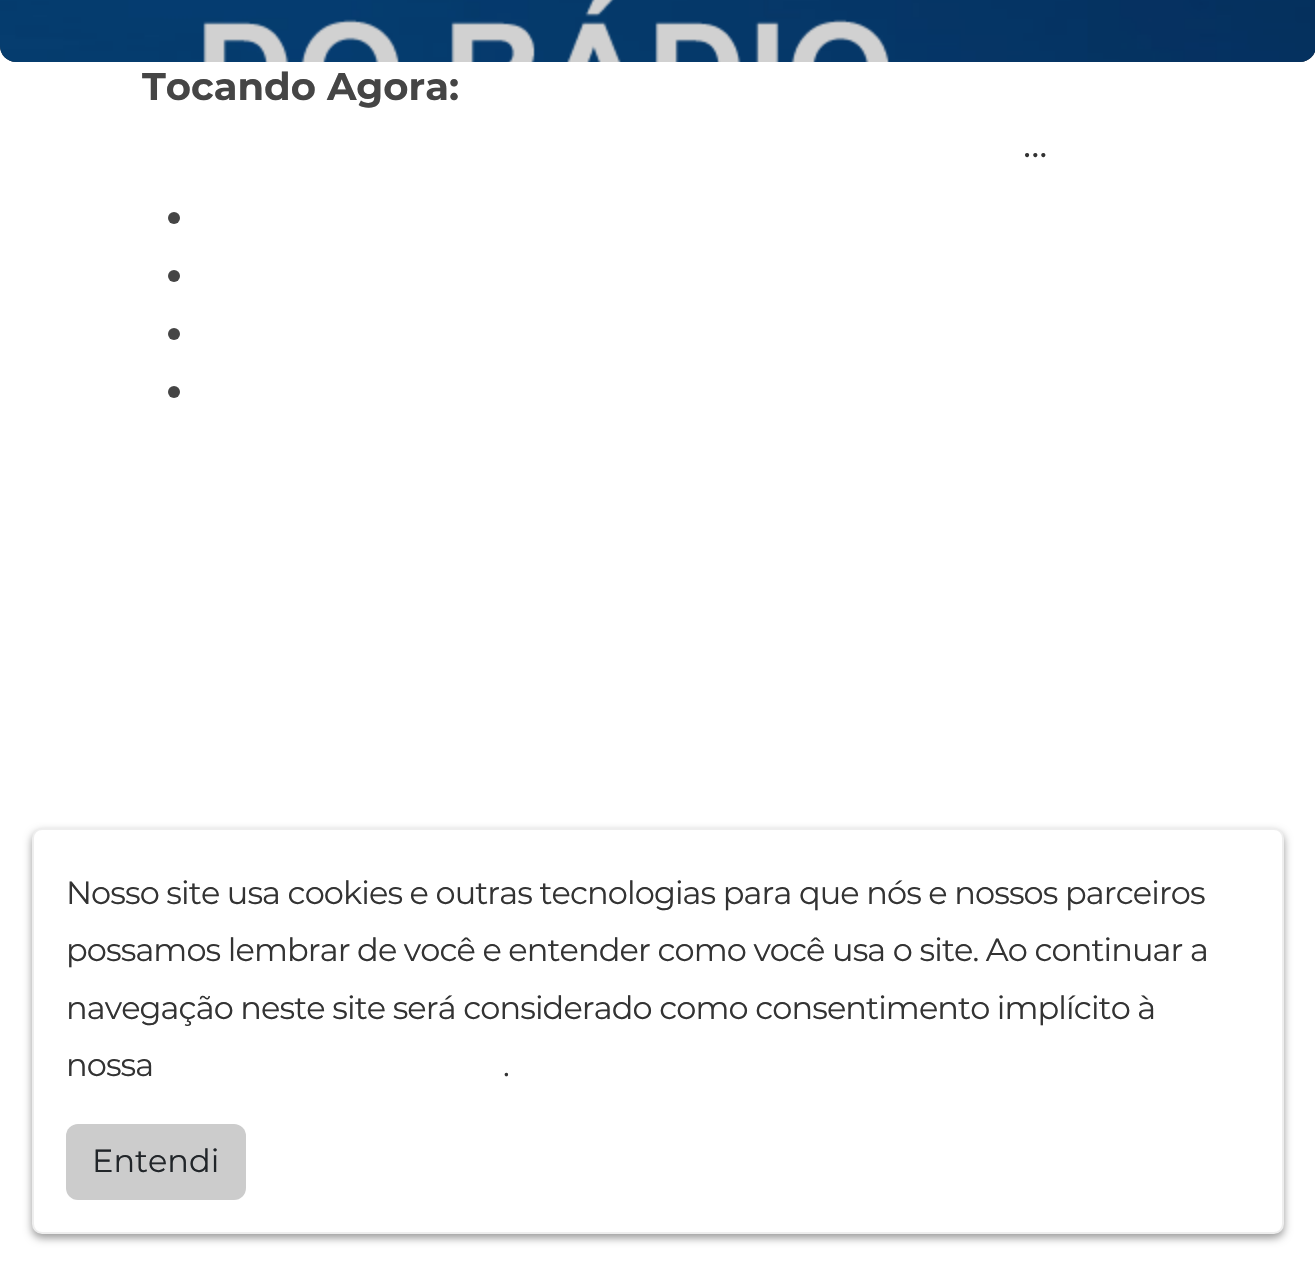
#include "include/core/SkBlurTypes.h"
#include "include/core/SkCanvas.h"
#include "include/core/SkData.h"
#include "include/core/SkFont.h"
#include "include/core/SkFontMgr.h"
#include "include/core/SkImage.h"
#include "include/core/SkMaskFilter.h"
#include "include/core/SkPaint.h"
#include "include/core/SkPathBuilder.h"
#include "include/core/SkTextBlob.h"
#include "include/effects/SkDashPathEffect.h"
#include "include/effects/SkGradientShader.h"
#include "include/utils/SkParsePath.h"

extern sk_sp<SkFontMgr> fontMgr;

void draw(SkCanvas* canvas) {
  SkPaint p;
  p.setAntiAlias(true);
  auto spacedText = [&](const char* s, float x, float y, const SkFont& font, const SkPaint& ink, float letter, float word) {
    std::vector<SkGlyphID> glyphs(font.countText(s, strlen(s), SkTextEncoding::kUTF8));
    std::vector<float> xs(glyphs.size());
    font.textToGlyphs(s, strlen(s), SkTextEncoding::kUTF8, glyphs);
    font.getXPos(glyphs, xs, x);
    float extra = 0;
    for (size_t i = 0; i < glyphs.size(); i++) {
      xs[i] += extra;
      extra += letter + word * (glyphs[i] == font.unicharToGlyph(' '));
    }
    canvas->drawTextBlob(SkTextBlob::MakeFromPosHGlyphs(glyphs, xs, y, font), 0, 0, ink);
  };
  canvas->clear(SK_ColorWHITE);
  p.setColor(SkColorSetRGB(21, 21, 21));
  canvas->drawRoundRect(SkRect::MakeLTRB(0, -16, 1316, 62), 16, 16, p);
  canvas->drawImageRect(SkImages::DeferredFromEncodedData(SkData::MakeFromFileName("images/1.png")), SkRect::MakeLTRB(0, 0, 1315, 62), SkSamplingOptions());
  p.setColor(SkColorSetRGB(69, 69, 69));
  canvas->drawCircle(174, 218, 6, p);
  canvas->drawCircle(174, 276, 6, p);
  canvas->drawCircle(174, 334, 6, p);
  canvas->drawCircle(174, 392, 6, p);
  p.setColor(SkColorSetARGB(102, 0, 0, 0));
  p.setMaskFilter(SkMaskFilter::MakeBlur(kNormal_SkBlurStyle, 4));
  canvas->drawRoundRect(SkRect::MakeLTRB(32, 832, 1284, 1238), 10, 10, p);
  p.setMaskFilter(nullptr);
  p.setColor(SK_ColorWHITE);
  canvas->drawRoundRect(SkRect::MakeLTRB(33, 829, 1283, 1233), 9, 9, p);
  p.setStyle(SkPaint::kStroke_Style);
  p.setStrokeWidth(2);
  p.setColor(SkColorSetRGB(238, 238, 238));
  canvas->drawRoundRect(SkRect::MakeLTRB(33, 829, 1283, 1233), 9, 9, p);
  p.setStyle(SkPaint::kFill_Style);
  p.setColor(SkColorSetRGB(204, 204, 204));
  canvas->drawRoundRect(SkRect::MakeLTRB(66, 1124, 246, 1200), 12, 12, p);
  SkFont font1(fontMgr->matchFamilyStyle("Montserrat", SkFontStyle::Bold()), 38.5f);
  font1.setSubpixel(true);
  p.setColor(SkColorSetRGB(69, 69, 69));
  canvas->drawString("Tocando Agora:", 142, 100, font1, p);
  SkFont font2(fontMgr->matchFamilyStyle("Montserrat", SkFontStyle::Normal()), 38.5f);
  font2.setSubpixel(true);
  p.setColor(SkColorSetRGB(51, 51, 51));
  canvas->drawString("...", 1023, 157, font2, p);
  SkFont font3(fontMgr->matchFamilyStyle("Montserrat", SkFontStyle::Normal()), 32);
  font3.setSubpixel(true);
  spacedText("Nosso site usa cookies e outras tecnologias para que nós e nossos parceiros", 66, 904, font3, p, -0.9f, 0);
  spacedText("possamos lembrar de você e entender como você usa o site. Ao continuar a", 66, 961, font3, p, -0.9f, 0);
  spacedText("navegação neste site será considerado como consentimento implícito à", 66, 1019, font3, p, -0.9f, 0);
  spacedText("nossa", 66, 1076, font3, p, -0.9f, 0);
  spacedText(".", 503, 1076, font3, p, -0.9f, 0);
  p.setColor(SkColorSetRGB(33, 37, 41));
  canvas->drawString("Entendi", 92, 1172, font3, p);
}
